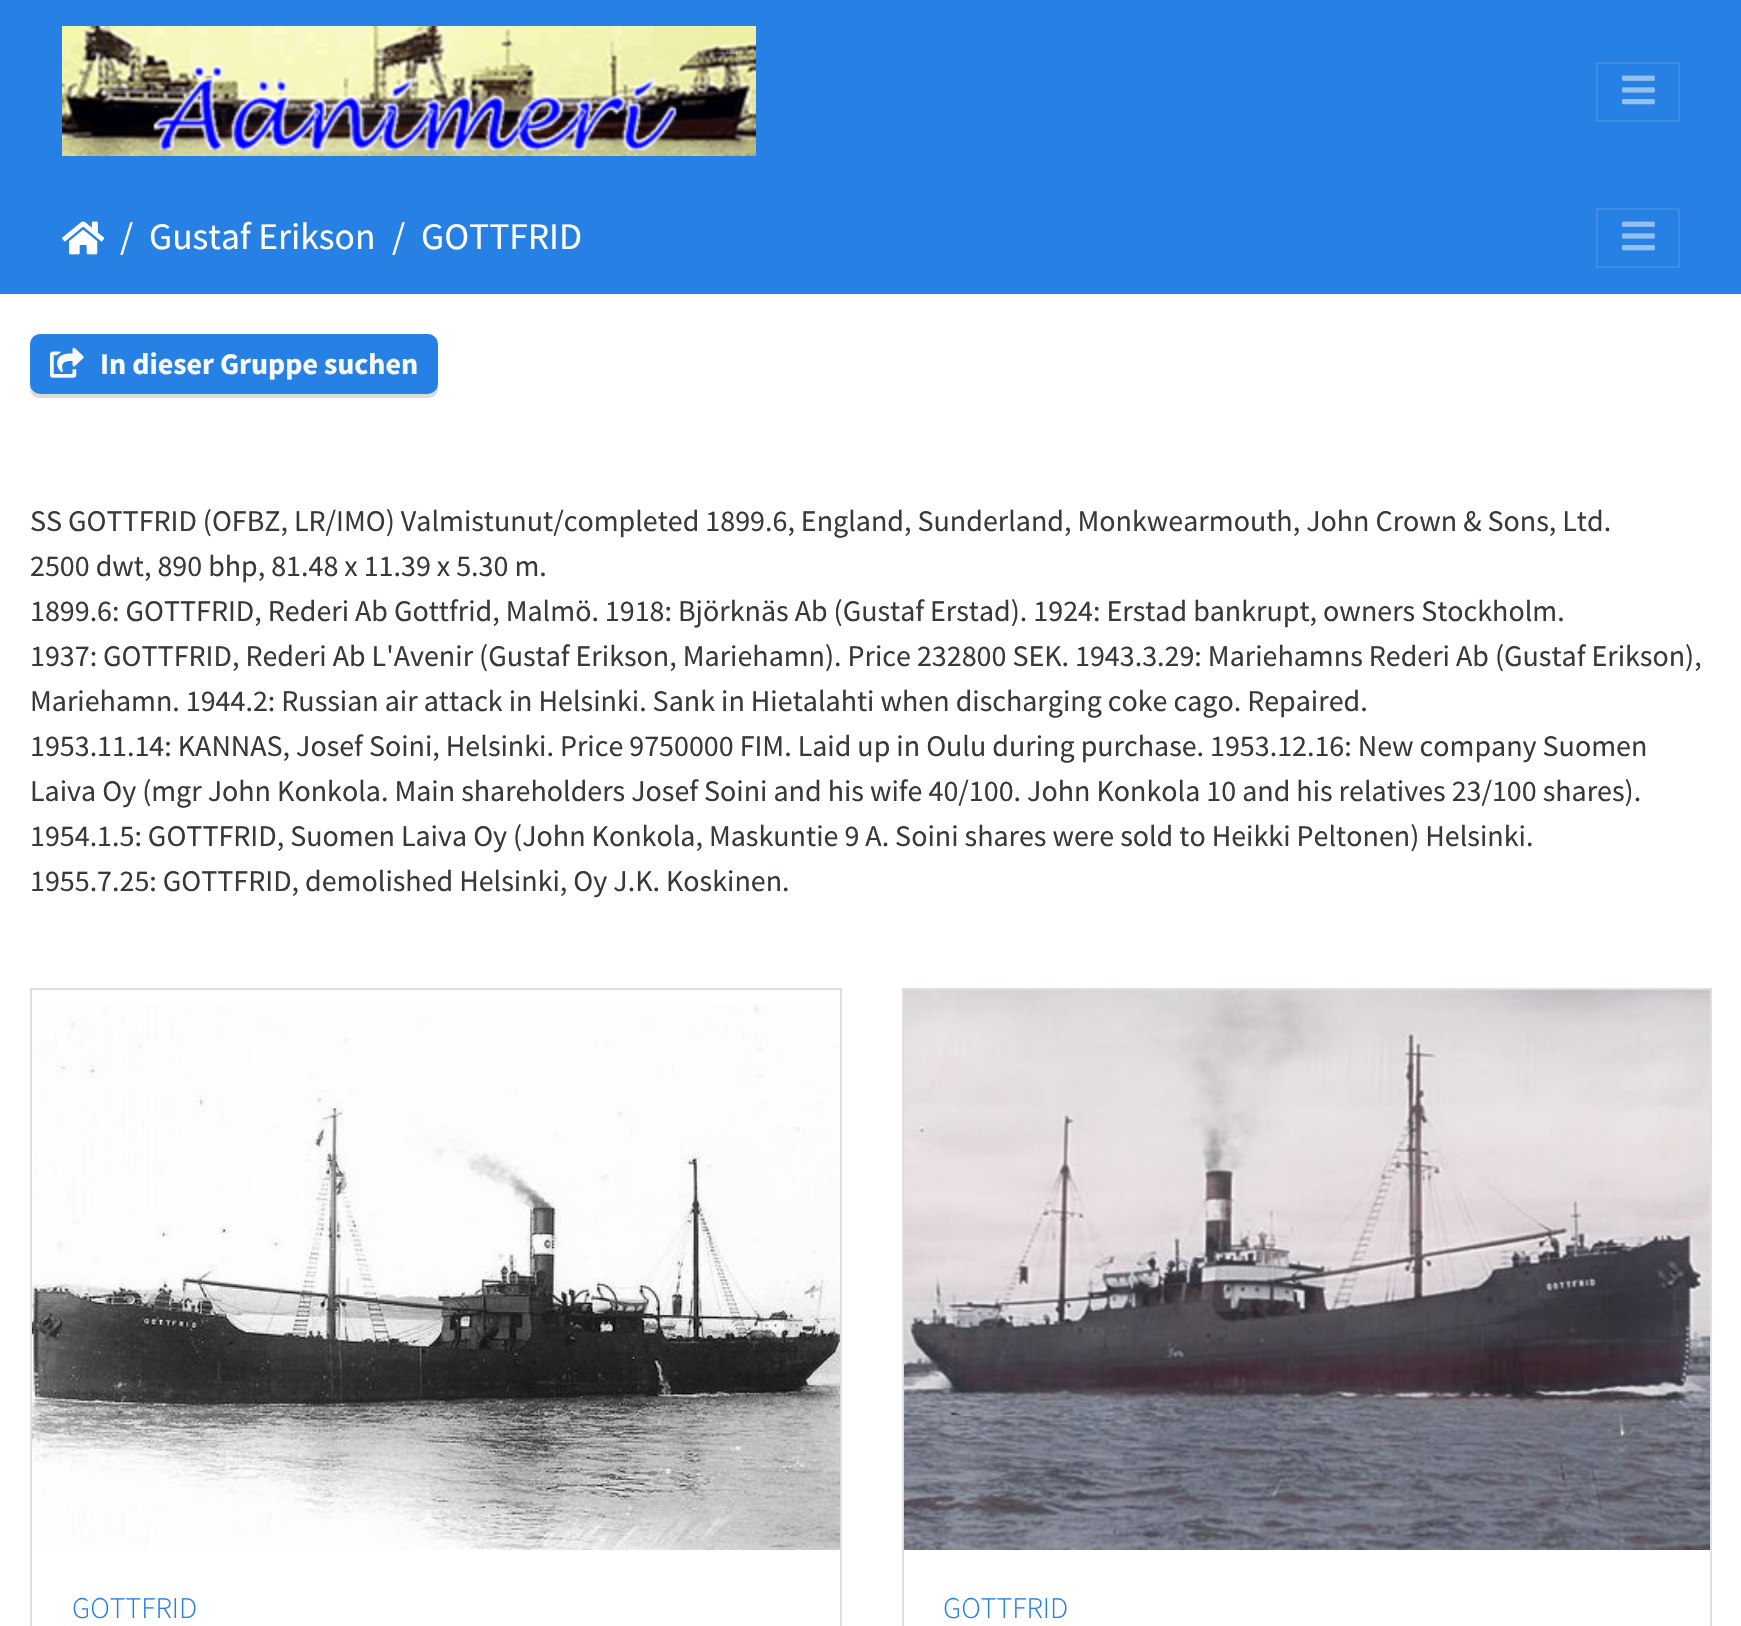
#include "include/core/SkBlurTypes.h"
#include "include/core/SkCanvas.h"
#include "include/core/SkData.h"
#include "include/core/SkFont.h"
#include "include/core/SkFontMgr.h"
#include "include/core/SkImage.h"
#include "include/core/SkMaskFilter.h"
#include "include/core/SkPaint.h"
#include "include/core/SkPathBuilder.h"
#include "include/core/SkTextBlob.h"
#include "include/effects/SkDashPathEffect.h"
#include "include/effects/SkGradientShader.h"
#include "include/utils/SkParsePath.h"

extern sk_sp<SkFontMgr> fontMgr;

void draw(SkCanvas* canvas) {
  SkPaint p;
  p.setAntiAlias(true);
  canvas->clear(SK_ColorWHITE);
  p.setColor(SkColorSetRGB(39, 128, 227));
  canvas->drawRect(SkRect::MakeLTRB(0, 0, 1741, 294), p);
  canvas->drawImageRect(SkImages::DeferredFromEncodedData(SkData::MakeFromFileName("images/1.png")), SkRect::MakeLTRB(62, 26, 756, 156), SkSamplingOptions());
  p.setStyle(SkPaint::kStroke_Style);
  p.setStrokeWidth(2);
  p.setColor(SkColorSetRGB(61, 141, 230));
  canvas->drawRect(SkRect::MakeLTRB(1597, 63, 1679, 121), p);
  canvas->drawImageRect(SkImages::DeferredFromEncodedData(SkData::MakeFromFileName("images/2.png")), SkRect::MakeLTRB(1622, 75, 1655, 105), SkSamplingOptions());
  canvas->drawImageRect(SkImages::DeferredFromEncodedData(SkData::MakeFromFileName("images/3.png")), SkRect::MakeLTRB(62, 221, 104, 255), SkSamplingOptions());
  canvas->drawRect(SkRect::MakeLTRB(1597, 209, 1679, 267), p);
  canvas->drawImageRect(SkImages::DeferredFromEncodedData(SkData::MakeFromFileName("images/2.png")), SkRect::MakeLTRB(1622, 221, 1655, 251), SkSamplingOptions());
  p.setStyle(SkPaint::kFill_Style);
  p.setColor(SkColorSetRGB(219, 219, 219));
  canvas->drawPath(SkPathBuilder().moveTo(30, 384).lineTo(30, 388).cubicTo(30, 394, 34, 398, 40, 398).lineTo(428, 398).cubicTo(434, 398, 438, 394, 438, 388).lineTo(438, 384).cubicTo(438, 390, 434, 394, 428, 394).lineTo(40, 394).cubicTo(34, 394, 30, 390, 30, 384).close().detach(), p);
  p.setColor(SkColorSetRGB(39, 128, 227));
  canvas->drawRoundRect(SkRect::MakeLTRB(30, 334, 438, 394), 10, 10, p);
  canvas->drawImageRect(SkImages::DeferredFromEncodedData(SkData::MakeFromFileName("images/4.png")), SkRect::MakeLTRB(50, 347, 84, 378), SkSamplingOptions());
  p.setStyle(SkPaint::kStroke_Style);
  p.setColor(SkColorSetRGB(223, 223, 223));
  canvas->drawRect(SkRect::MakeLTRB(31, 989, 841, 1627), p);
  canvas->drawImageRect(SkImages::DeferredFromEncodedData(SkData::MakeFromFileName("images/5.png")), SkRect::MakeLTRB(32, 1003, 840, 1550), SkSamplingOptions());
  canvas->drawRect(SkRect::MakeLTRB(903, 989, 1711, 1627), p);
  canvas->drawImageRect(SkImages::DeferredFromEncodedData(SkData::MakeFromFileName("images/6.png")), SkRect::MakeLTRB(904, 990, 1710, 1550), SkSamplingOptions());
  SkFont font1(fontMgr->matchFamilyStyle("Source Sans Pro", SkFontStyle::Normal()), 37.5f);
  font1.setSubpixel(true);
  p.setStyle(SkPaint::kFill_Style);
  p.setColor(SK_ColorWHITE);
  canvas->drawString("/", 120, 249, font1, p);
  canvas->drawString("Gustaf Erikson", 149, 249, font1, p);
  canvas->drawString("/", 392, 249, font1, p);
  canvas->drawString("GOTTFRID", 421, 249, font1, p);
  SkFont font2(fontMgr->matchFamilyStyle("Source Sans Pro", SkFontStyle::Bold()), 30);
  font2.setSubpixel(true);
  p.setColor(SkColorSetRGB(248, 249, 250));
  canvas->drawString("In dieser Gruppe suchen", 100, 374, font2, p);
  SkFont font3(fontMgr->matchFamilyStyle("Source Sans Pro", SkFontStyle::Normal()), 30);
  font3.setSubpixel(true);
  p.setColor(SkColorSetRGB(55, 58, 60));
  canvas->drawString("SS GOTTFRID (OFBZ, LR/IMO) Valmistunut/completed 1899.6, England, Sunderland, Monkwearmouth, John Crown & Sons, Ltd.", 30, 531, font3, p);
  canvas->drawString("2500 dwt, 890 bhp, 81.48 x 11.39 x 5.30 m.", 30, 576, font3, p);
  canvas->drawString("1899.6: GOTTFRID, Rederi Ab Gottfrid, Malmö. 1918: Björknäs Ab (Gustaf Erstad). 1924: Erstad bankrupt, owners Stockholm.", 30, 621, font3, p);
  canvas->drawString("1937: GOTTFRID, Rederi Ab L'Avenir (Gustaf Erikson, Mariehamn). Price 232800 SEK. 1943.3.29: Mariehamns Rederi Ab (Gustaf Erikson),", 30, 666, font3, p);
  canvas->drawString("Mariehamn. 1944.2: Russian air attack in Helsinki. Sank in Hietalahti when discharging coke cago. Repaired.", 30, 711, font3, p);
  canvas->drawString("1953.11.14: KANNAS, Josef Soini, Helsinki. Price 9750000 FIM. Laid up in Oulu during purchase. 1953.12.16: New company Suomen", 30, 756, font3, p);
  canvas->drawString("Laiva Oy (mgr John Konkola. Main shareholders Josef Soini and his wife 40/100. John Konkola 10 and his relatives 23/100 shares).", 30, 801, font3, p);
  canvas->drawString("1954.1.5: GOTTFRID, Suomen Laiva Oy (John Konkola, Maskuntie 9 A. Soini shares were sold to Heikki Peltonen) Helsinki.", 30, 846, font3, p);
  canvas->drawString("1955.7.25: GOTTFRID, demolished Helsinki, Oy J.K. Koskinen.", 30, 891, font3, p);
  SkFont font4(fontMgr->matchFamilyStyle("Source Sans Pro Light", SkFontStyle(300, SkFontStyle::kNormal_Width, SkFontStyle::kUpright_Slant)), 30);
  font4.setSubpixel(true);
  p.setColor(SkColorSetRGB(39, 128, 227));
  canvas->drawString("GOTTFRID", 72, 1618, font4, p);
  canvas->drawString("GOTTFRID", 943, 1618, font4, p);
}
